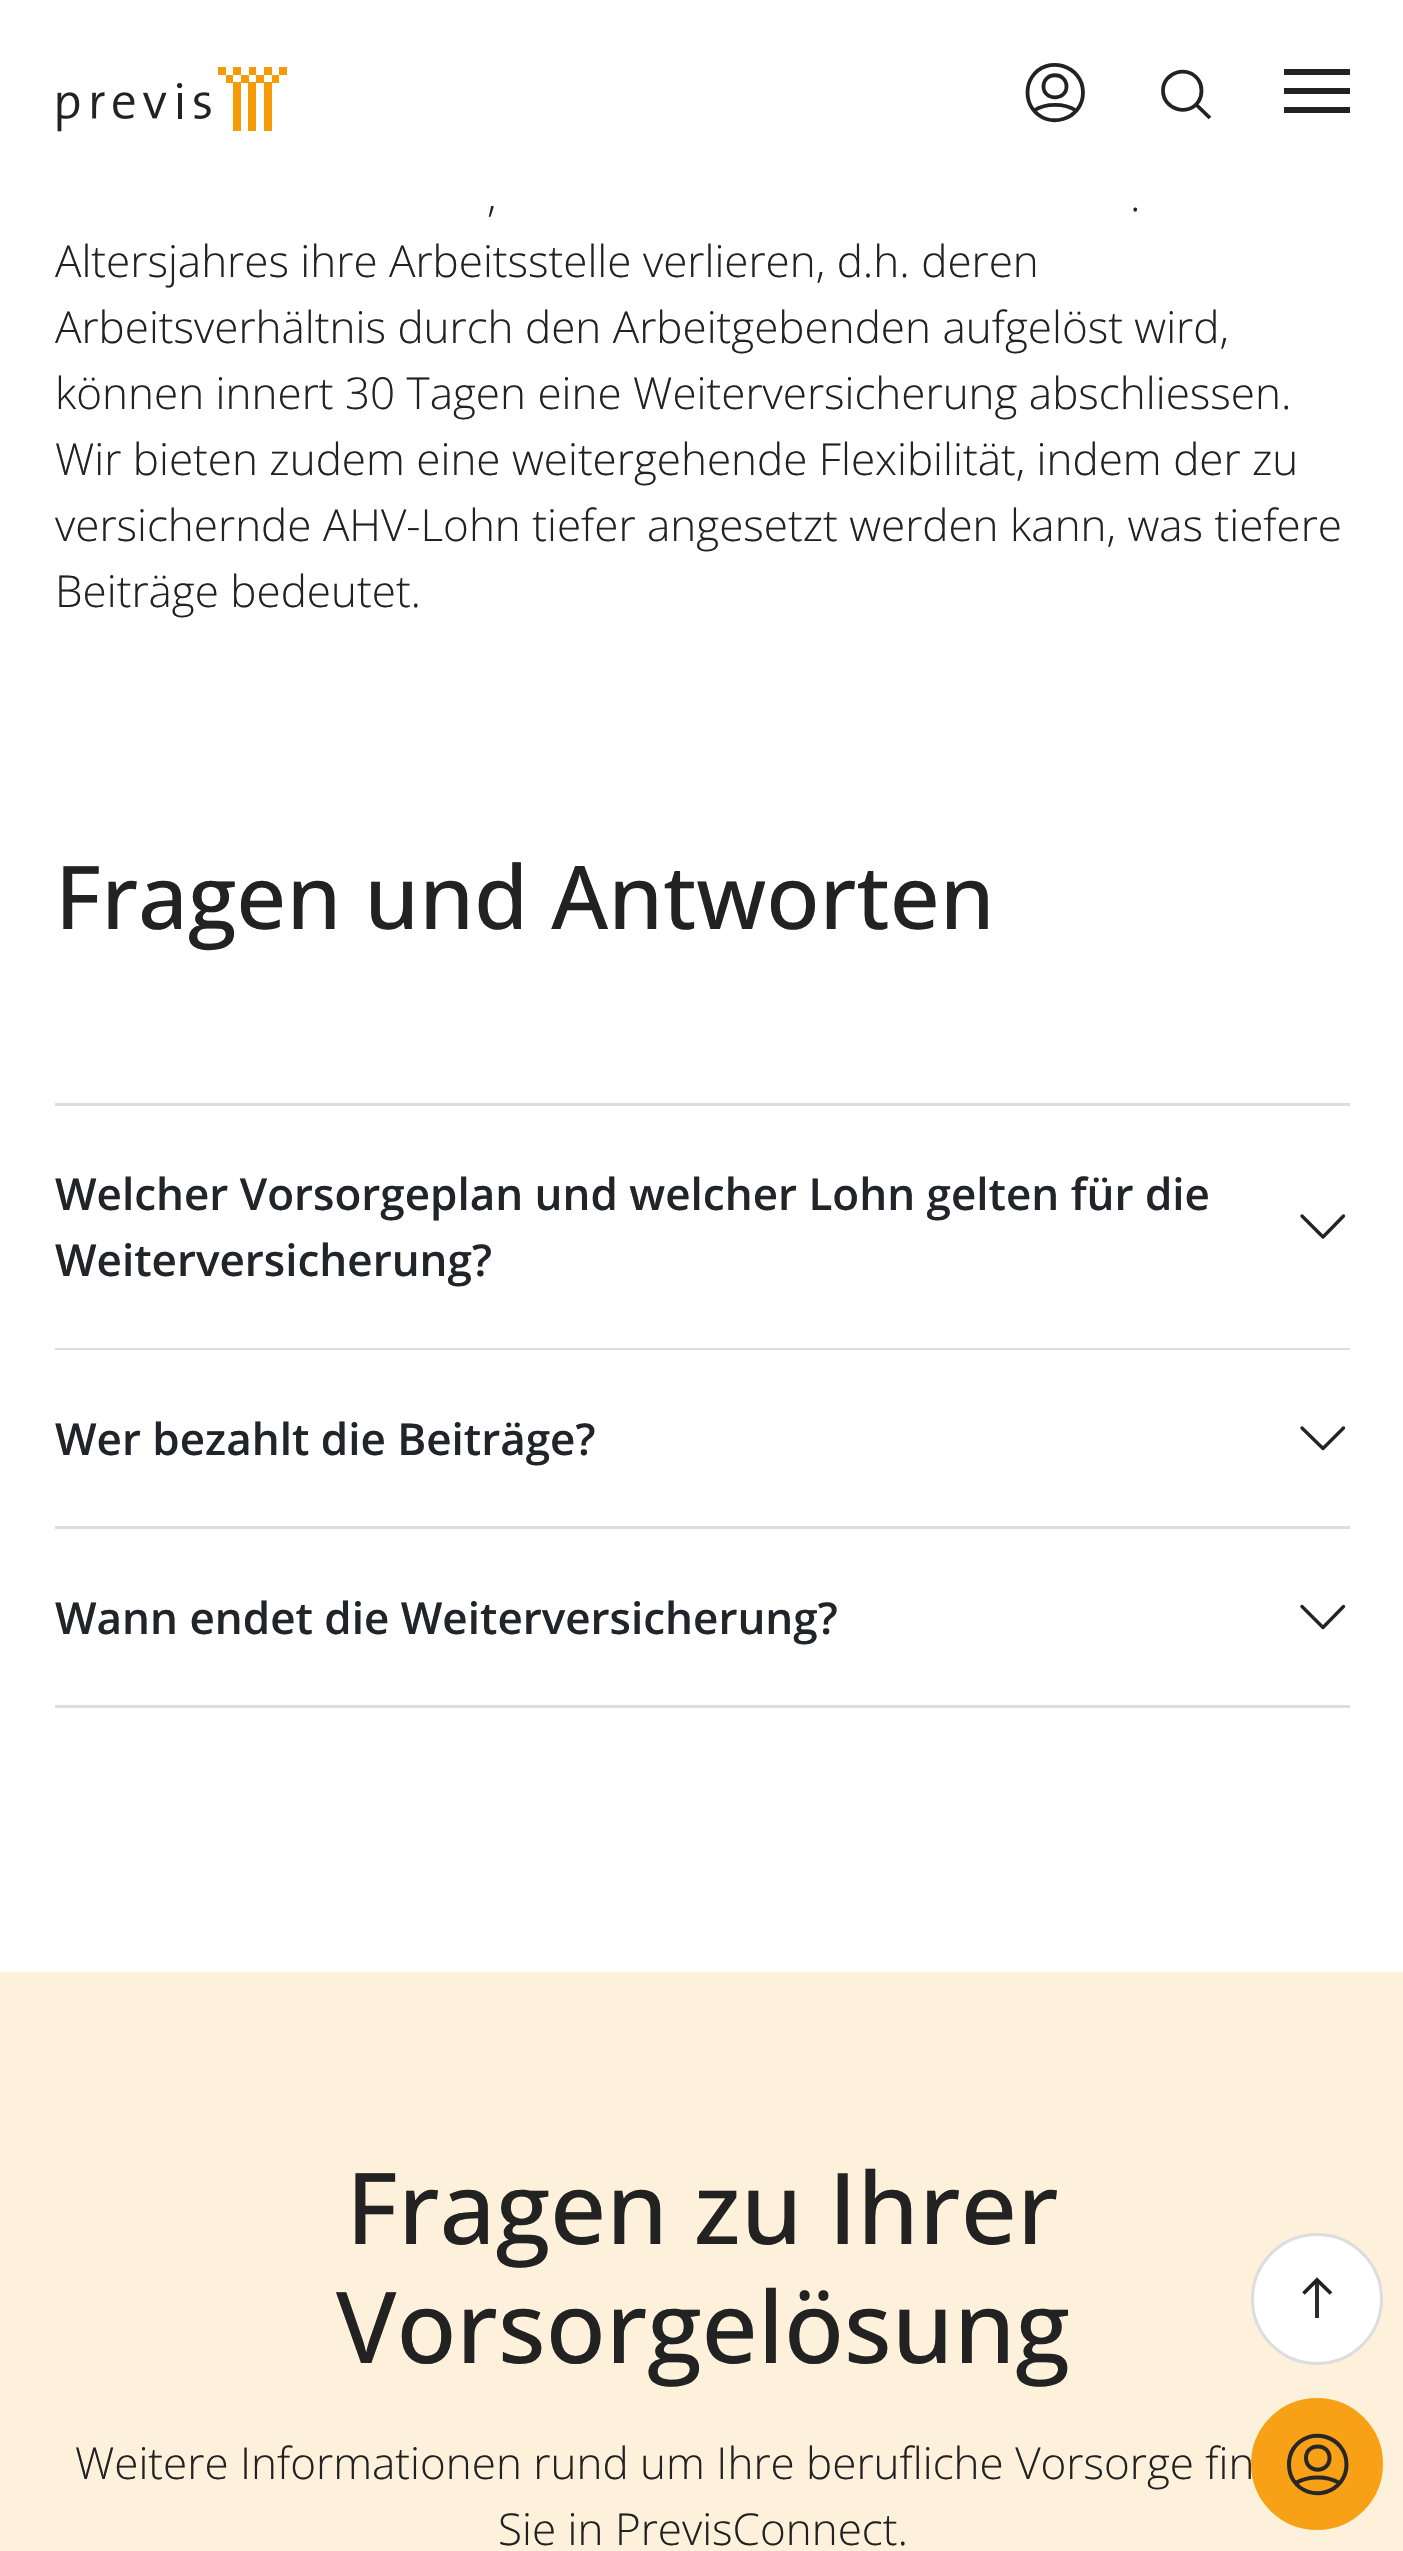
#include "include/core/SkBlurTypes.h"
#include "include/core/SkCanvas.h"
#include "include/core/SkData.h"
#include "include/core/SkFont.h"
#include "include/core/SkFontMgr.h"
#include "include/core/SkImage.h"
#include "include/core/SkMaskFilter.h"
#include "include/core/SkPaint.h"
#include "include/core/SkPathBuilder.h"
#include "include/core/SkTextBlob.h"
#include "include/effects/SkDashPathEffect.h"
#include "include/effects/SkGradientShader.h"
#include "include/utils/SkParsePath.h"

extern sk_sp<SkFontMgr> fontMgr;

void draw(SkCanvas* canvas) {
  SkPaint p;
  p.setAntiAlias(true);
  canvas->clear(SK_ColorWHITE);
  canvas->drawImageRect(SkImages::DeferredFromEncodedData(SkData::MakeFromFileName("images/1.png")), SkRect::MakeLTRB(57, 67, 287, 132), SkSamplingOptions());
  p.setStyle(SkPaint::kStroke_Style);
  p.setStrokeWidth(3.8f);
  p.setColor(SkColorSetRGB(34, 34, 34));
  canvas->drawPath(SkPathBuilder().moveTo(1027.5f, 92.5f).cubicTo(1027.5f, 98, 1029, 103.5f, 1032, 108).cubicTo(1047, 130.5f, 1083, 120, 1083, 92.5f).cubicTo(1083, 65.5f, 1047, 54.5f, 1032, 77).cubicTo(1029, 81.5f, 1027.5f, 87, 1027.5f, 92.5f).close().moveTo(1034, 110.5f).cubicTo(1046, 103, 1064, 103, 1076, 110.5f).moveTo(1043.5f, 86.5f).cubicTo(1043.5f, 101, 1066.5f, 101, 1066.5f, 86.5f).cubicTo(1066.5f, 71.5f, 1043.5f, 71.5f, 1043.5f, 86.5f).close().detach(), p);
  canvas->drawPath(SkPathBuilder().moveTo(1163, 90.5f).cubicTo(1163, 109.5f, 1188, 117, 1198.5f, 101.5f).cubicTo(1200.5f, 98.5f, 1201.5f, 94.5f, 1201.5f, 90.5f).cubicTo(1201.5f, 87, 1200.5f, 83, 1198.5f, 80).cubicTo(1188, 64.5f, 1163, 72, 1163, 90.5f).close().moveTo(1196, 104.5f).lineTo(1210, 118).detach(), p);
  p.setStyle(SkPaint::kFill_Style);
  canvas->drawRect(SkRect::MakeLTRB(1284, 88, 1350, 94), p);
  canvas->drawRect(SkRect::MakeLTRB(1284, 69, 1350, 75), p);
  canvas->drawRect(SkRect::MakeLTRB(1284, 107, 1350, 113), p);
  p.setColor(SkColorSetRGB(221, 221, 221));
  canvas->drawRect(SkRect::MakeLTRB(55, 1103, 1350, 1106), p);
  canvas->drawRect(SkRect::MakeLTRB(55, 1348, 1350, 1350), p);
  p.setStyle(SkPaint::kStroke_Style);
  p.setStrokeWidth(3.4f);
  p.setStrokeCap(SkPaint::kRound_Cap);
  p.setStrokeJoin(SkPaint::kRound_Join);
  p.setColor(SkColorSetRGB(33, 37, 41));
  canvas->drawPath(SkPathBuilder().moveTo(1302, 1216).lineTo(1323, 1237).lineTo(1343.5f, 1216).detach(), p);
  p.setStyle(SkPaint::kFill_Style);
  p.setColor(SkColorSetRGB(221, 221, 221));
  canvas->drawRect(SkRect::MakeLTRB(55, 1526, 1350, 1529), p);
  p.setStyle(SkPaint::kStroke_Style);
  p.setColor(SkColorSetRGB(33, 37, 41));
  canvas->drawPath(SkPathBuilder().moveTo(1302, 1428).lineTo(1323, 1448.5f).lineTo(1343.5f, 1428).detach(), p);
  p.setStyle(SkPaint::kFill_Style);
  p.setColor(SkColorSetRGB(221, 221, 221));
  canvas->drawRect(SkRect::MakeLTRB(55, 1705, 1350, 1708), p);
  p.setStyle(SkPaint::kStroke_Style);
  p.setColor(SkColorSetRGB(33, 37, 41));
  canvas->drawPath(SkPathBuilder().moveTo(1302, 1606.5f).lineTo(1323, 1627.5f).lineTo(1343.5f, 1606.5f).detach(), p);
  p.setStyle(SkPaint::kFill_Style);
  p.setColor(SkColorSetRGB(254, 241, 220));
  canvas->drawRect(SkRect::MakeLTRB(0, 1972, 1403, 2551), p);
  p.setColor(SK_ColorWHITE);
  canvas->drawCircle(1317, 2299, 64.5f, p);
  p.setStyle(SkPaint::kStroke_Style);
  p.setStrokeWidth(3);
  p.setStrokeCap(SkPaint::kButt_Cap);
  p.setStrokeJoin(SkPaint::kMiter_Join);
  p.setColor(SkColorSetRGB(221, 221, 221));
  canvas->drawCircle(1317, 2299, 64.5f, p);
  p.setStyle(SkPaint::kFill_Style);
  p.setColor(SkColorSetRGB(45, 45, 45));
  canvas->drawRect(SkRect::MakeLTRB(1315, 2280, 1319, 2318), p);
  p.setStyle(SkPaint::kStroke_Style);
  p.setStrokeWidth(3.8f);
  p.setColor(SkColorSetRGB(34, 34, 34));
  canvas->drawPath(SkPathBuilder().moveTo(1303.5f, 2293.5f).lineTo(1317, 2280).lineTo(1331, 2293.5f).detach(), p);
  p.setStyle(SkPaint::kFill_Style);
  p.setColor(SkColorSetRGB(248, 161, 22));
  canvas->drawCircle(1317, 2464, 64.5f, p);
  p.setStyle(SkPaint::kStroke_Style);
  p.setStrokeWidth(3);
  canvas->drawCircle(1317, 2464, 64.5f, p);
  p.setStrokeWidth(4);
  p.setColor(SkColorSetRGB(39, 39, 39));
  canvas->drawPath(SkPathBuilder().moveTo(1289, 2464.5f).cubicTo(1289, 2470, 1290.5f, 2476, 1293.5f, 2480.5f).cubicTo(1309.5f, 2504, 1346.5f, 2493, 1346.5f, 2464.5f).cubicTo(1346.5f, 2436, 1309.5f, 2425, 1293.5f, 2448.5f).cubicTo(1290.5f, 2453, 1289, 2459, 1289, 2464.5f).close().moveTo(1295.5f, 2483).cubicTo(1308.5f, 2475.5f, 1327, 2475.5f, 1339.5f, 2483).moveTo(1306, 2458).cubicTo(1306, 2473.5f, 1329.5f, 2473.5f, 1329.5f, 2458).cubicTo(1329.5f, 2442.5f, 1306, 2442.5f, 1306, 2458).close().detach(), p);
  SkFont font1(fontMgr->matchFamilyStyle("Open Sans", SkFontStyle(300, SkFontStyle::kNormal_Width, SkFontStyle::kUpright_Slant)), 44);
  font1.setSubpixel(true);
  p.setStyle(SkPaint::kFill_Style);
  p.setColor(SkColorSetRGB(34, 34, 34));
  canvas->drawString(",", 487, 211, font1, p);
  canvas->drawString(".", 1130, 211, font1, p);
  canvas->drawString("Altersjahres ihre Arbeitsstelle verlieren, d.h. deren", 55, 277, font1, p);
  canvas->drawString("Arbeitsverhältnis durch den Arbeitgebenden aufgelöst wird,", 55, 343, font1, p);
  canvas->drawString("können innert 30 Tagen eine Weiterversicherung abschliessen.", 55, 409, font1, p);
  canvas->drawString("Wir bieten zudem eine weitergehende Flexibilität, indem der zu", 55, 475, font1, p);
  canvas->drawString("versichernde AHV-Lohn tiefer angesetzt werden kann, was tiefere", 55, 541, font1, p);
  canvas->drawString("Beiträge bedeutet.", 55, 607, font1, p);
  SkFont font2(fontMgr->matchFamilyStyle("Open Sans", SkFontStyle(500, SkFontStyle::kNormal_Width, SkFontStyle::kUpright_Slant)), 88);
  font2.setSubpixel(true);
  canvas->drawString("Fragen und Antworten", 55, 929, font2, p);
  SkFont font3(fontMgr->matchFamilyStyle("Open Sans", SkFontStyle(600, SkFontStyle::kNormal_Width, SkFontStyle::kUpright_Slant)), 44);
  font3.setSubpixel(true);
  p.setColor(SkColorSetRGB(33, 37, 41));
  canvas->drawString("Welcher Vorsorgeplan und welcher Lohn gelten für die", 55, 1210, font3, p);
  canvas->drawString("Weiterversicherung?", 55, 1276, font3, p);
  canvas->drawString("Wer bezahlt die Beiträge?", 55, 1455, font3, p);
  canvas->drawString("Wann endet die Weiterversicherung?", 55, 1634, font3, p);
  SkFont font4(fontMgr->matchFamilyStyle("Open Sans", SkFontStyle(500, SkFontStyle::kNormal_Width, SkFontStyle::kUpright_Slant)), 99);
  font4.setSubpixel(true);
  p.setColor(SkColorSetRGB(34, 34, 34));
  canvas->drawString("Fragen zu Ihrer", 346, 2244, font4, p);
  canvas->drawString("Vorsorgelösung", 336, 2363, font4, p);
  canvas->drawString("Weitere Informationen rund um Ihre berufliche Vorsorge fin", 75, 2479, font1, p);
  canvas->drawString("Sie in PrevisConnect.", 498, 2545, font1, p);
}
